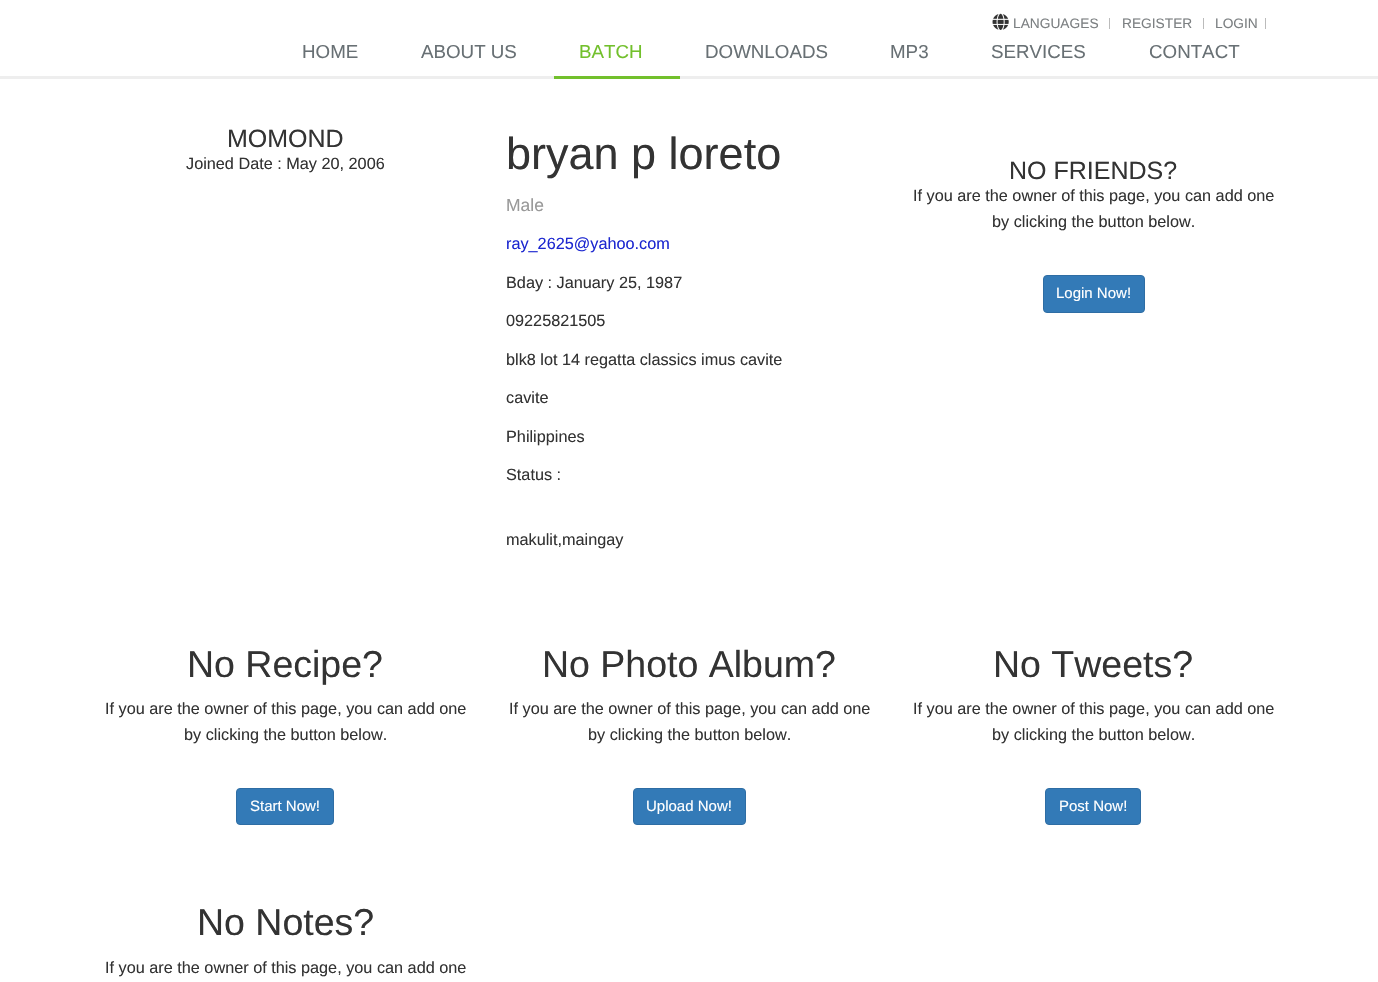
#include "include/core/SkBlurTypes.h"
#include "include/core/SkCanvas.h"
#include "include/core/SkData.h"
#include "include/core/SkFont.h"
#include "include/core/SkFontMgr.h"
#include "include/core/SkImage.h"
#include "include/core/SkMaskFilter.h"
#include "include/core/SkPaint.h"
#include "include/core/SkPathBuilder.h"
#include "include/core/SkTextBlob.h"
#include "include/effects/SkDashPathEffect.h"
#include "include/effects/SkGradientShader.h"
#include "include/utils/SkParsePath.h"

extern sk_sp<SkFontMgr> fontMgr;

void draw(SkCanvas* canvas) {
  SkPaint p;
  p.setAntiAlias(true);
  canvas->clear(SK_ColorWHITE);
  p.setColor(SkColorSetRGB(238, 238, 238));
  canvas->drawRect(SkRect::MakeLTRB(0, 76, 1378, 79), p);
  canvas->drawImageRect(SkImages::DeferredFromEncodedData(SkData::MakeFromFileName("images/1.png")), SkRect::MakeLTRB(992, 13, 1009, 30), SkSamplingOptions());
  p.setColor(SkColorSetRGB(187, 187, 187));
  canvas->drawRect(SkRect::MakeLTRB(1109, 18, 1110, 29), p);
  canvas->drawRect(SkRect::MakeLTRB(1203, 18, 1204, 29), p);
  canvas->drawRect(SkRect::MakeLTRB(1265, 18, 1266, 29), p);
  p.setColor(SkColorSetRGB(114, 192, 44));
  canvas->drawRect(SkRect::MakeLTRB(554, 76, 680, 79), p);
  p.setColor(SkColorSetRGB(51, 122, 183));
  canvas->drawRoundRect(SkRect::MakeLTRB(1043.5f, 275.5f, 1144.5f, 312.5f), 3.5f, 3.5f, p);
  p.setStyle(SkPaint::kStroke_Style);
  p.setStrokeWidth(1);
  p.setColor(SkColorSetRGB(46, 109, 164));
  canvas->drawRoundRect(SkRect::MakeLTRB(1043.5f, 275.5f, 1144.5f, 312.5f), 3.5f, 3.5f, p);
  p.setStyle(SkPaint::kFill_Style);
  p.setColor(SkColorSetRGB(51, 122, 183));
  canvas->drawRoundRect(SkRect::MakeLTRB(236.5f, 788.5f, 333.5f, 824.5f), 3.5f, 3.5f, p);
  p.setStyle(SkPaint::kStroke_Style);
  p.setColor(SkColorSetRGB(46, 109, 164));
  canvas->drawRoundRect(SkRect::MakeLTRB(236.5f, 788.5f, 333.5f, 824.5f), 3.5f, 3.5f, p);
  p.setStyle(SkPaint::kFill_Style);
  p.setColor(SkColorSetRGB(51, 122, 183));
  canvas->drawRoundRect(SkRect::MakeLTRB(633.5f, 788.5f, 745.5f, 824.5f), 3.5f, 3.5f, p);
  p.setStyle(SkPaint::kStroke_Style);
  p.setColor(SkColorSetRGB(46, 109, 164));
  canvas->drawRoundRect(SkRect::MakeLTRB(633.5f, 788.5f, 745.5f, 824.5f), 3.5f, 3.5f, p);
  p.setStyle(SkPaint::kFill_Style);
  p.setColor(SkColorSetRGB(51, 122, 183));
  canvas->drawRoundRect(SkRect::MakeLTRB(1045.5f, 788.5f, 1140.5f, 824.5f), 3.5f, 3.5f, p);
  p.setStyle(SkPaint::kStroke_Style);
  p.setColor(SkColorSetRGB(46, 109, 164));
  canvas->drawRoundRect(SkRect::MakeLTRB(1045.5f, 788.5f, 1140.5f, 824.5f), 3.5f, 3.5f, p);
  SkFont font1(fontMgr->matchFamilyStyle("Liberation Sans", SkFontStyle::Normal()), 13.75f);
  font1.setSubpixel(true);
  p.setStyle(SkPaint::kFill_Style);
  p.setColor(SkColorSetRGB(124, 128, 130));
  canvas->drawString("LANGUAGES", 1013, 28, font1, p);
  canvas->drawString("REGISTER", 1122, 28, font1, p);
  canvas->drawString("LOGIN", 1215, 28, font1, p);
  SkFont font2(fontMgr->matchFamilyStyle("Liberation Sans", SkFontStyle::Normal()), 18.75f);
  font2.setSubpixel(true);
  p.setColor(SkColorSetRGB(104, 112, 116));
  canvas->drawString("HOME", 302, 58, font2, p);
  canvas->drawString("ABOUT US", 421, 58, font2, p);
  p.setColor(SkColorSetRGB(114, 192, 44));
  canvas->drawString("BATCH", 579, 58, font2, p);
  p.setColor(SkColorSetRGB(104, 112, 116));
  canvas->drawString("DOWNLOADS", 705, 58, font2, p);
  canvas->drawString("MP3", 890, 58, font2, p);
  canvas->drawString("SERVICES", 991, 58, font2, p);
  canvas->drawString("CONTACT", 1149, 58, font2, p);
  SkFont font3(fontMgr->matchFamilyStyle("Liberation Sans", SkFontStyle::Normal()), 25);
  font3.setSubpixel(true);
  p.setColor(SkColorSetRGB(51, 51, 51));
  canvas->drawString("MOMOND", 227, 147, font3, p);
  SkFont font4(fontMgr->matchFamilyStyle("Liberation Sans", SkFontStyle::Normal()), 16.25f);
  font4.setSubpixel(true);
  canvas->drawString("Joined Date : May 20, 2006", 186, 169, font4, p);
  SkFont font5(fontMgr->matchFamilyStyle("Liberation Sans", SkFontStyle::Normal()), 45);
  font5.setSubpixel(true);
  canvas->drawString("bryan p loreto", 506, 169, font5, p);
  SkFont font6(fontMgr->matchFamilyStyle("Liberation Sans", SkFontStyle::Normal()), 17.5f);
  font6.setSubpixel(true);
  p.setColor(SkColorSetRGB(153, 153, 153));
  canvas->drawString("Male", 506, 211, font6, p);
  p.setColor(SkColorSetRGB(28, 39, 208));
  canvas->drawString("ray_2625@yahoo.com", 506, 249, font4, p);
  p.setColor(SkColorSetRGB(51, 51, 51));
  canvas->drawString("Bday : January 25, 1987", 506, 288, font4, p);
  canvas->drawString("09225821505", 506, 326, font4, p);
  canvas->drawString("blk8 lot 14 regatta classics imus cavite", 506, 365, font4, p);
  canvas->drawString("cavite", 506, 403, font4, p);
  canvas->drawString("Philippines", 506, 442, font4, p);
  canvas->drawString("Status :", 506, 480, font4, p);
  canvas->drawString("makulit,maingay", 506, 545, font4, p);
  canvas->drawString("NO FRIENDS?", 1009, 179, font3, p);
  canvas->drawString("If you are the owner of this page, you can add one", 913, 201, font4, p);
  canvas->drawString("by clicking the button below.", 992, 227, font4, p);
  SkFont font7(fontMgr->matchFamilyStyle("Liberation Sans", SkFontStyle::Normal()), 15);
  font7.setSubpixel(true);
  p.setColor(SK_ColorWHITE);
  canvas->drawString("Login Now!", 1056, 298, font7, p);
  SkFont font8(fontMgr->matchFamilyStyle("Liberation Sans", SkFontStyle::Normal()), 37.5f);
  font8.setSubpixel(true);
  p.setColor(SkColorSetRGB(51, 51, 51));
  canvas->drawString("No Recipe?", 187, 677, font8, p);
  canvas->drawString("If you are the owner of this page, you can add one", 105, 714, font4, p);
  canvas->drawString("by clicking the button below.", 184, 740, font4, p);
  p.setColor(SK_ColorWHITE);
  canvas->drawString("Start Now!", 250, 811, font7, p);
  p.setColor(SkColorSetRGB(51, 51, 51));
  canvas->drawString("No Photo Album?", 542, 677, font8, p);
  canvas->drawString("If you are the owner of this page, you can add one", 509, 714, font4, p);
  canvas->drawString("by clicking the button below.", 588, 740, font4, p);
  p.setColor(SK_ColorWHITE);
  canvas->drawString("Upload Now!", 646, 811, font7, p);
  p.setColor(SkColorSetRGB(51, 51, 51));
  canvas->drawString("No Tweets?", 993, 677, font8, p);
  canvas->drawString("If you are the owner of this page, you can add one", 913, 714, font4, p);
  canvas->drawString("by clicking the button below.", 992, 740, font4, p);
  p.setColor(SK_ColorWHITE);
  canvas->drawString("Post Now!", 1059, 811, font7, p);
  p.setColor(SkColorSetRGB(51, 51, 51));
  canvas->drawString("No Notes?", 197, 935, font8, p);
  canvas->drawString("If you are the owner of this page, you can add one", 105, 973, font4, p);
}
